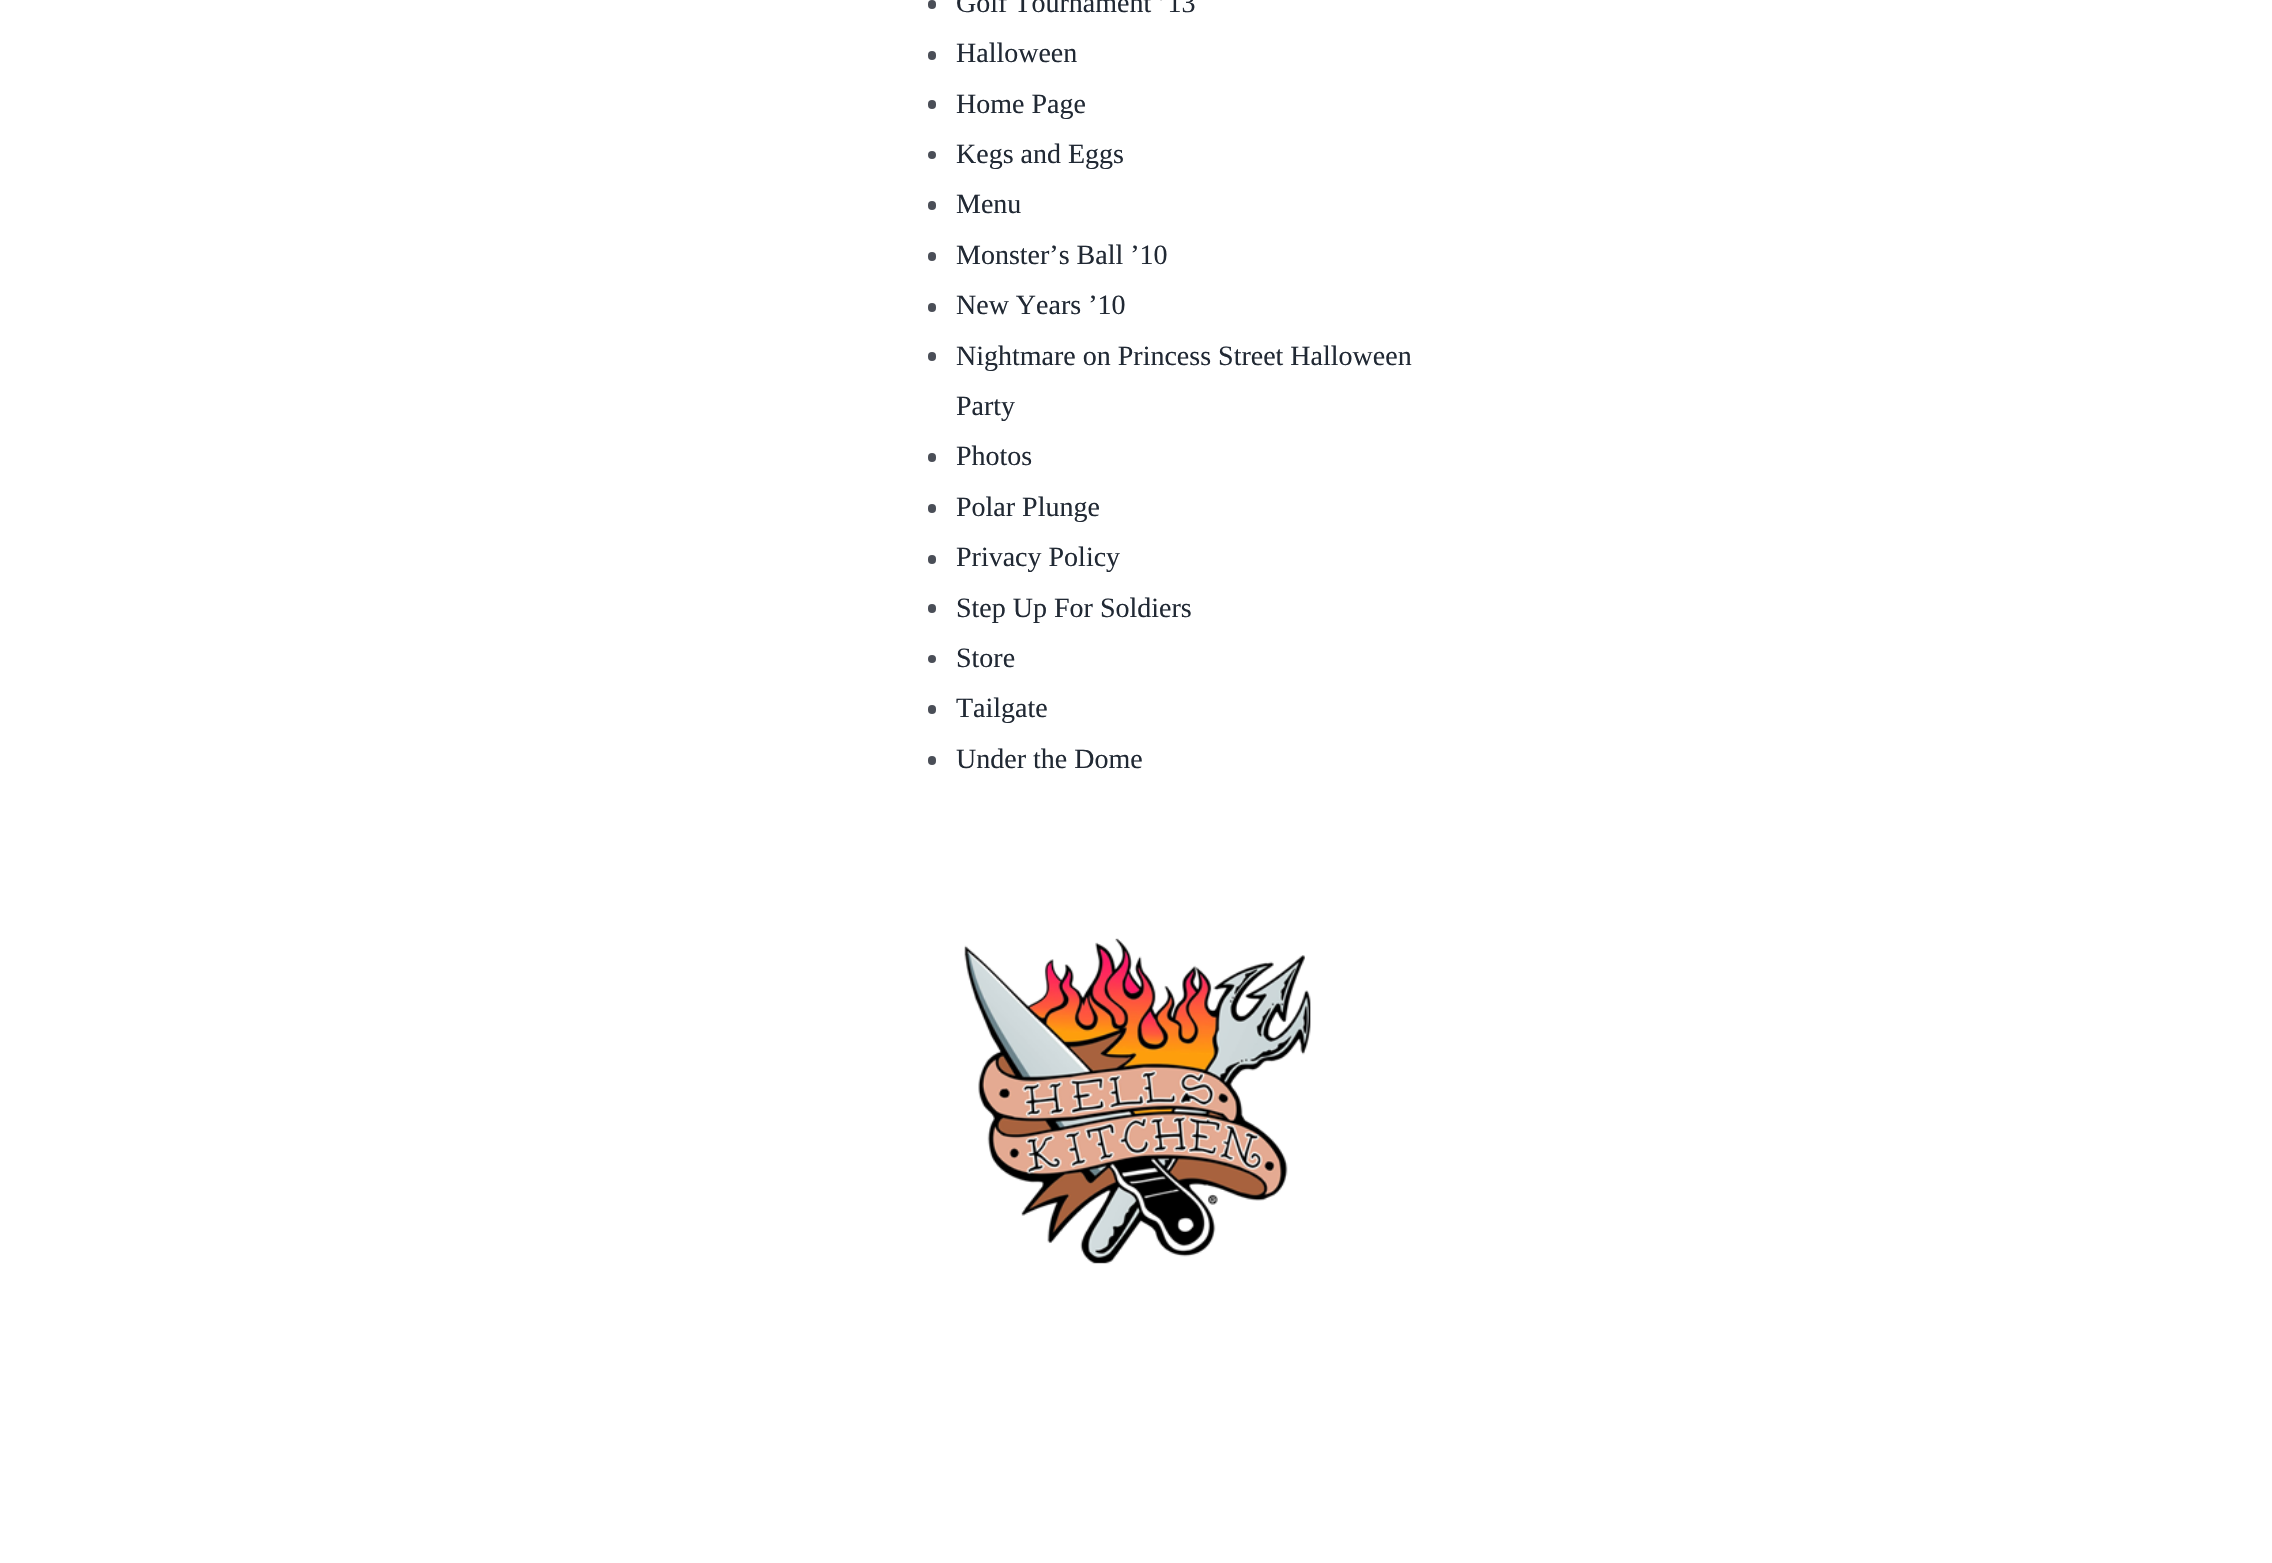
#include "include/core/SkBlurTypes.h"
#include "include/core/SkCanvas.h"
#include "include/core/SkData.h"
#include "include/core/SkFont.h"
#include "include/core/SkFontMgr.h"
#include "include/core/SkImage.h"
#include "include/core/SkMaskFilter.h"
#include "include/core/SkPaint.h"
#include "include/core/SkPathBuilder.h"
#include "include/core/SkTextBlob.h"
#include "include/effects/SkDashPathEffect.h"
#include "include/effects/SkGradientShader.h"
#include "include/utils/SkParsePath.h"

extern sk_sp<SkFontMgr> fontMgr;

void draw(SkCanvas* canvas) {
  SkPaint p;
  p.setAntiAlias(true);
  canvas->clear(SK_ColorWHITE);
  p.setColor(SkColorSetRGB(74, 78, 87));
  canvas->drawRoundRect(SkRect::MakeLTRB(928, 0, 936, 9), 4, 4, p);
  canvas->drawRoundRect(SkRect::MakeLTRB(928, 51, 936, 60), 4, 4, p);
  canvas->drawRoundRect(SkRect::MakeLTRB(928, 100, 936, 109), 4, 4, p);
  canvas->drawCircle(932, 155, 4, p);
  canvas->drawRoundRect(SkRect::MakeLTRB(928, 201, 936, 210), 4, 4, p);
  canvas->drawRoundRect(SkRect::MakeLTRB(928, 252, 936, 261), 4, 4, p);
  canvas->drawRoundRect(SkRect::MakeLTRB(928, 303, 936, 312), 4, 4, p);
  canvas->drawRoundRect(SkRect::MakeLTRB(928, 352, 936, 361), 4, 4, p);
  canvas->drawRoundRect(SkRect::MakeLTRB(928, 453, 936, 462), 4, 4, p);
  canvas->drawRoundRect(SkRect::MakeLTRB(928, 504, 936, 513), 4, 4, p);
  canvas->drawRoundRect(SkRect::MakeLTRB(928, 555, 936, 564), 4, 4, p);
  canvas->drawRoundRect(SkRect::MakeLTRB(928, 604, 936, 613), 4, 4, p);
  canvas->drawCircle(932, 659, 4, p);
  canvas->drawRoundRect(SkRect::MakeLTRB(928, 705, 936, 714), 4, 4, p);
  canvas->drawRoundRect(SkRect::MakeLTRB(928, 756, 936, 765), 4, 4, p);
  canvas->drawImageRect(SkImages::DeferredFromEncodedData(SkData::MakeFromFileName("images/1.png")), SkRect::MakeLTRB(964, 938, 1311, 1264), SkSamplingOptions());
  SkFont font1(fontMgr->matchFamilyStyle("Liberation Serif", SkFontStyle::Normal()), 28);
  font1.setSubpixel(true);
  p.setColor(SkColorSetRGB(33, 41, 52));
  canvas->drawString("Golf Tournament ’13", 956, 12, font1, p);
  canvas->drawString("Halloween", 956, 62, font1, p);
  canvas->drawString("Home Page", 956, 113, font1, p);
  canvas->drawString("Kegs and Eggs", 956, 163, font1, p);
  canvas->drawString("Menu", 956, 213, font1, p);
  canvas->drawString("Monster’s Ball ’10", 956, 264, font1, p);
  canvas->drawString("New Years ’10", 956, 314, font1, p);
  canvas->drawString("Nightmare on Princess Street Halloween", 956, 365, font1, p);
  canvas->drawString("Party", 956, 415, font1, p);
  canvas->drawString("Photos", 956, 465, font1, p);
  canvas->drawString("Polar Plunge", 956, 516, font1, p);
  canvas->drawString("Privacy Policy", 956, 566, font1, p);
  canvas->drawString("Step Up For Soldiers", 956, 617, font1, p);
  canvas->drawString("Store", 956, 667, font1, p);
  canvas->drawString("Tailgate", 956, 717, font1, p);
  canvas->drawString("Under the Dome", 956, 768, font1, p);
}
